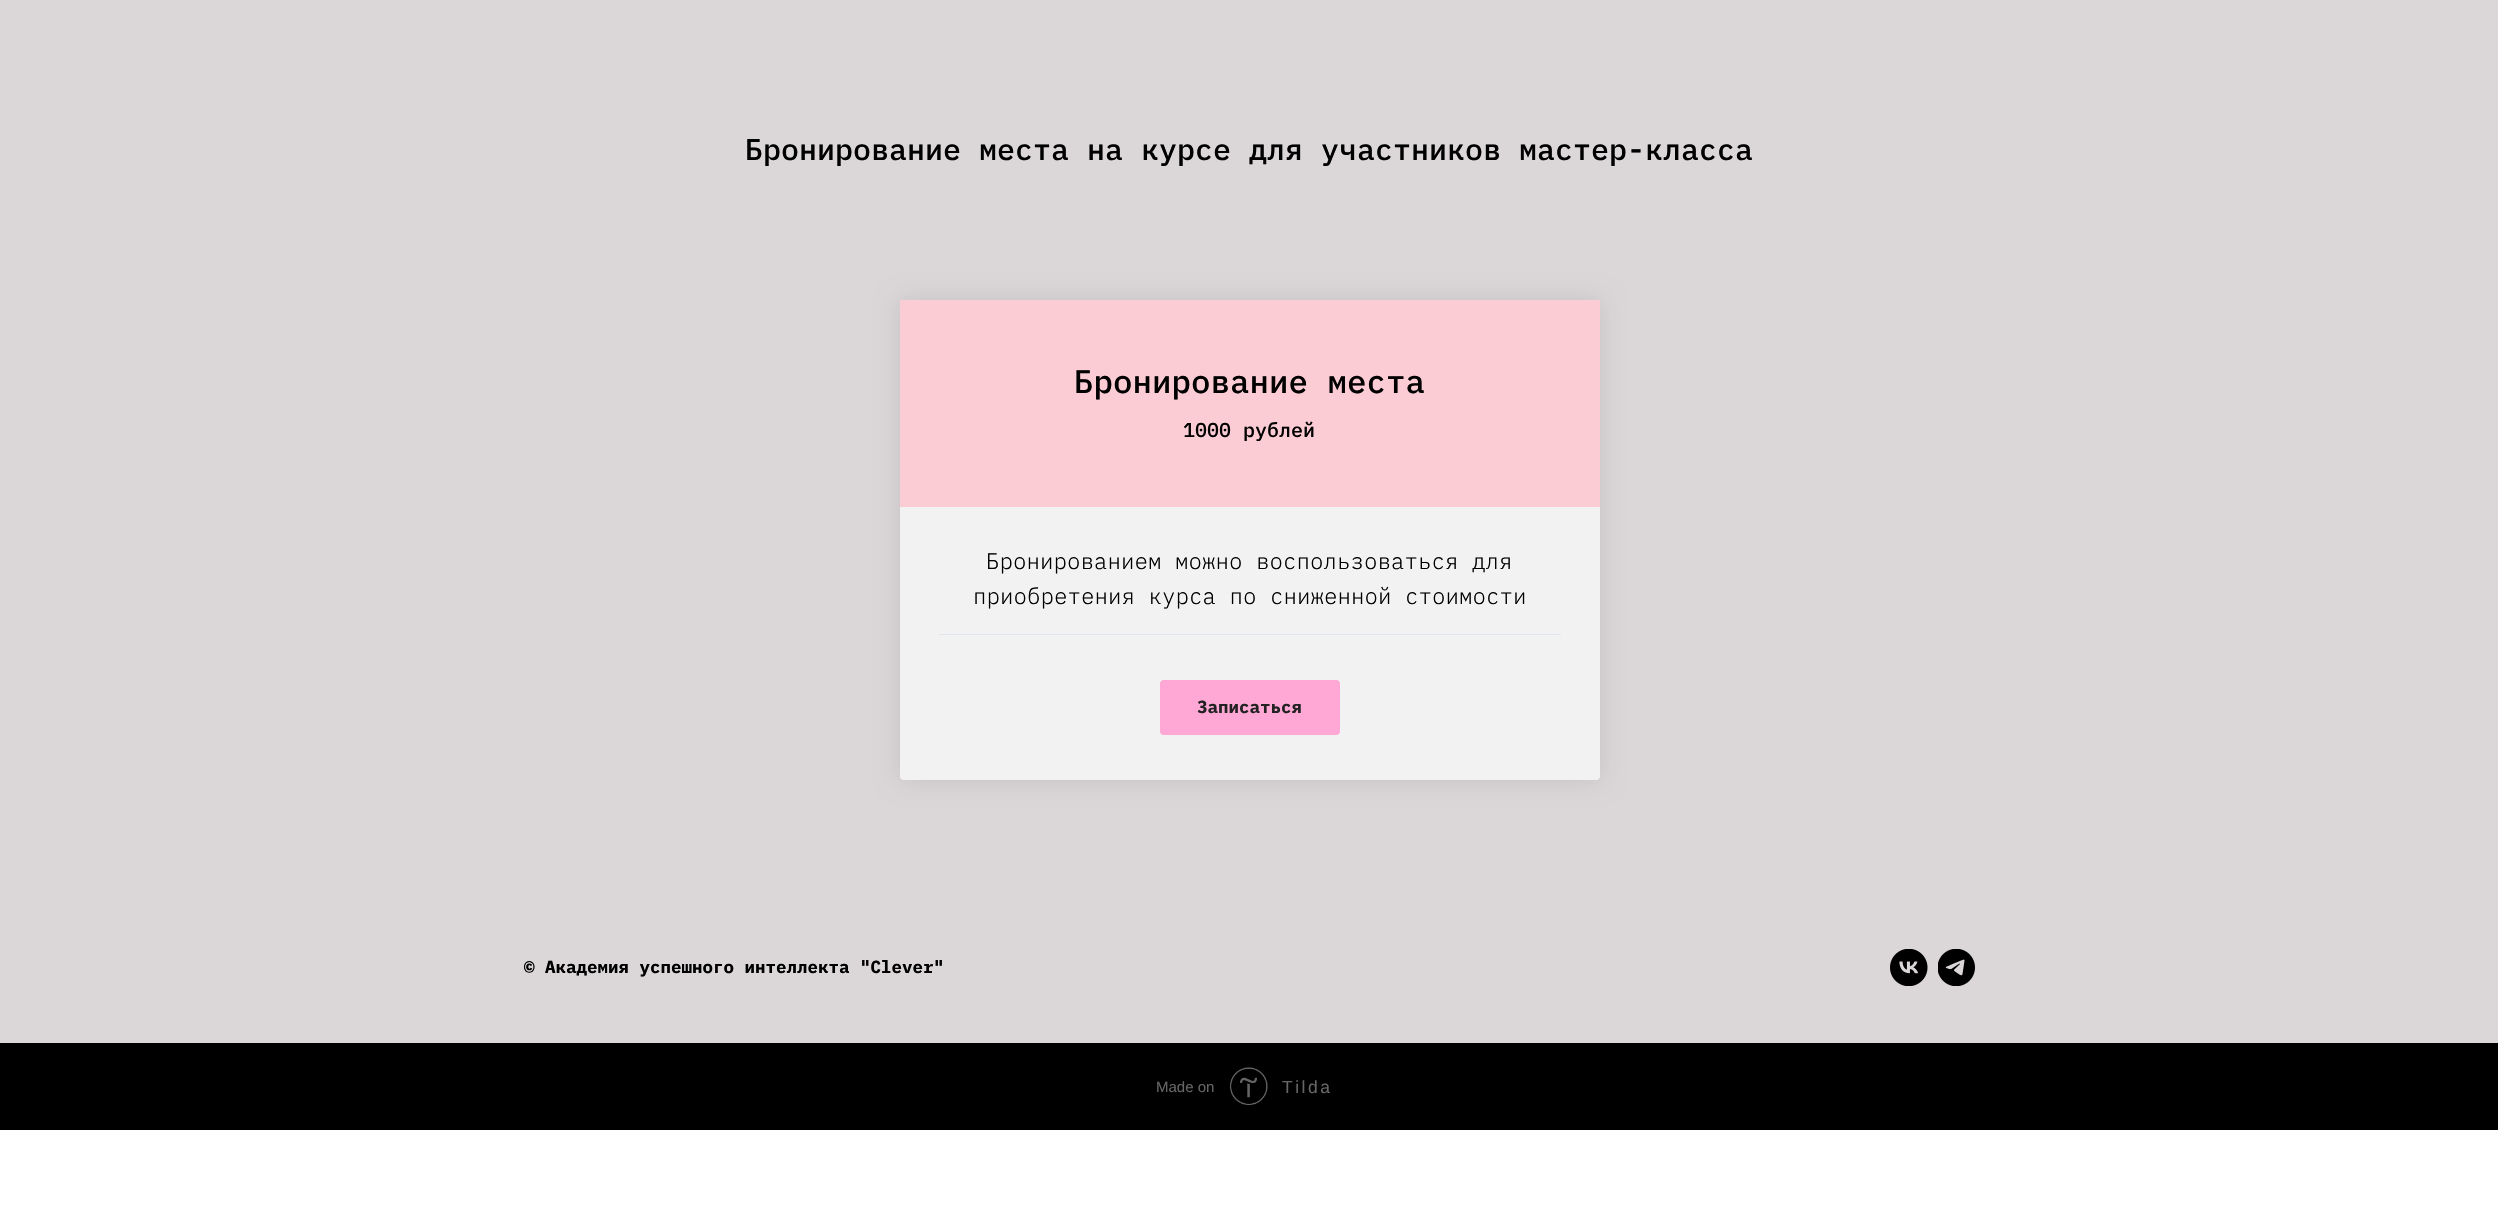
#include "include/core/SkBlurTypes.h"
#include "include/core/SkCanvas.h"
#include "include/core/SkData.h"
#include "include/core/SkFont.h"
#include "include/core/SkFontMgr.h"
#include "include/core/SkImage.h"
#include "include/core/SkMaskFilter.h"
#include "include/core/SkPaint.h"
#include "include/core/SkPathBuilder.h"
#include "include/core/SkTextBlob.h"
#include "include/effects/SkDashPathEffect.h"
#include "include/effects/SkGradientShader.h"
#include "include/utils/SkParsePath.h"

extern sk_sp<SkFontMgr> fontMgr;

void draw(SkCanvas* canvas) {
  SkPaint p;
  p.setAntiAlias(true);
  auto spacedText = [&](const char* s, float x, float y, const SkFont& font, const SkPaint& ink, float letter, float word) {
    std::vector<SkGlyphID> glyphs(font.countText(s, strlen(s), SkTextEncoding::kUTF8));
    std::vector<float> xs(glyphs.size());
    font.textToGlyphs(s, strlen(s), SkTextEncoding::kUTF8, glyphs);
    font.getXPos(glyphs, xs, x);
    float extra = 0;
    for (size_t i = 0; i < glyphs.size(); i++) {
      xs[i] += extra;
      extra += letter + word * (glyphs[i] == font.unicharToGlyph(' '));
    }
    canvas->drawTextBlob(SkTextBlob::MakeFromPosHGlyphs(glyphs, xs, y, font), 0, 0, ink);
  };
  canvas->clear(SK_ColorWHITE);
  p.setColor(SkColorSetRGB(219, 215, 216));
  canvas->drawRect(SkRect::MakeLTRB(0, 0, 2498, 1043), p);
  p.setColor(SkColorSetARGB(26, 0, 0, 0));
  p.setMaskFilter(SkMaskFilter::MakeBlur(kNormal_SkBlurStyle, 12.5f));
  canvas->drawRoundRect(SkRect::MakeLTRB(900, 300, 1600, 780), 4, 4, p);
  p.setMaskFilter(nullptr);
  p.setColor(SkColorSetRGB(242, 242, 242));
  canvas->drawPath(SkPathBuilder().moveTo(900, 506).lineTo(1600, 506).lineTo(1600, 776).cubicTo(1600, 778, 1598, 780, 1596, 780).lineTo(904, 780).cubicTo(902, 780, 900, 778, 900, 776).close().detach(), p);
  canvas->drawPath(SkPathBuilder(SkPathFillType::kEvenOdd).moveTo(900, 506).lineTo(1600, 506).lineTo(1600, 776).cubicTo(1600, 778, 1598, 780, 1596, 780).lineTo(904, 780).cubicTo(902, 780, 900, 778, 900, 776).close().moveTo(901, 506).lineTo(1599, 506).lineTo(1599, 776).cubicTo(1599, 778, 1598, 779, 1596, 779).lineTo(904, 779).cubicTo(902, 779, 901, 778, 901, 776).close().detach(), p);
  p.setColor(SkColorSetRGB(251, 204, 212));
  canvas->drawRect(SkRect::MakeLTRB(900, 300, 1600, 507), p);
  p.setColor(SkColorSetRGB(224, 230, 237));
  canvas->drawRect(SkRect::MakeLTRB(939, 634, 1561, 635), p);
  p.setColor(SkColorSetRGB(255, 168, 213));
  canvas->drawRoundRect(SkRect::MakeLTRB(1160, 680, 1340, 735), 4, 4, p);
  canvas->drawImageRect(SkImages::DeferredFromEncodedData(SkData::MakeFromFileName("images/1.png")), SkRect::MakeLTRB(1890, 949, 1928, 986), SkSamplingOptions());
  canvas->drawImageRect(SkImages::DeferredFromEncodedData(SkData::MakeFromFileName("images/2.png")), SkRect::MakeLTRB(1938, 949, 1975, 986), SkSamplingOptions());
  p.setColor(SK_ColorBLACK);
  canvas->drawRect(SkRect::MakeLTRB(0, 1043, 2498, 1130), p);
  canvas->drawImageRect(SkImages::DeferredFromEncodedData(SkData::MakeFromFileName("images/3.png")), SkRect::MakeLTRB(1230, 1067, 1268, 1105), SkSamplingOptions());
  SkFont font1(fontMgr->matchFamilyStyle("IBM Plex Mono", SkFontStyle(500, SkFontStyle::kNormal_Width, SkFontStyle::kUpright_Slant)), 30);
  font1.setSubpixel(true);
  canvas->drawString("Бронирование места на курсе для участников мастер-класса", 745, 160, font1, p);
  SkFont font2(fontMgr->matchFamilyStyle("IBM Plex Mono", SkFontStyle(500, SkFontStyle::kNormal_Width, SkFontStyle::kUpright_Slant)), 32.5f);
  font2.setSubpixel(true);
  canvas->drawString("Бронирование места", 1074, 393, font2, p);
  SkFont font3(fontMgr->matchFamilyStyle("IBM Plex Mono", SkFontStyle(500, SkFontStyle::kNormal_Width, SkFontStyle::kUpright_Slant)), 20);
  font3.setSubpixel(true);
  canvas->drawString("1000 рублей", 1183, 437, font3, p);
  SkFont font4(fontMgr->matchFamilyStyle("IBM Plex Mono", SkFontStyle(300, SkFontStyle::kNormal_Width, SkFontStyle::kUpright_Slant)), 22.5f);
  font4.setSubpixel(true);
  canvas->drawString("Бронированием можно воспользоваться для", 986, 569, font4, p);
  canvas->drawString("приобретения курса по сниженной стоимости", 973, 604, font4, p);
  SkFont font5(fontMgr->matchFamilyStyle("IBM Plex Mono", SkFontStyle::Bold()), 17.5f);
  font5.setSubpixel(true);
  p.setColor(SkColorSetRGB(34, 34, 34));
  canvas->drawString("Записаться", 1197, 713, font5, p);
  p.setColor(SK_ColorBLACK);
  canvas->drawString("© Академия успешного интеллекта \"Clever\"", 524, 973, font5, p);
  SkFont font6(fontMgr->matchFamilyStyle("Liberation Sans", SkFontStyle::Normal()), 15);
  font6.setSubpixel(true);
  p.setColor(SkColorSetRGB(102, 102, 102));
  canvas->drawString("Made on", 1156, 1092, font6, p);
  SkFont font7(fontMgr->matchFamilyStyle("Liberation Sans", SkFontStyle::Normal()), 17.5f);
  font7.setSubpixel(true);
  spacedText("Tilda", 1282, 1093, font7, p, 2.5f, 0);
}
